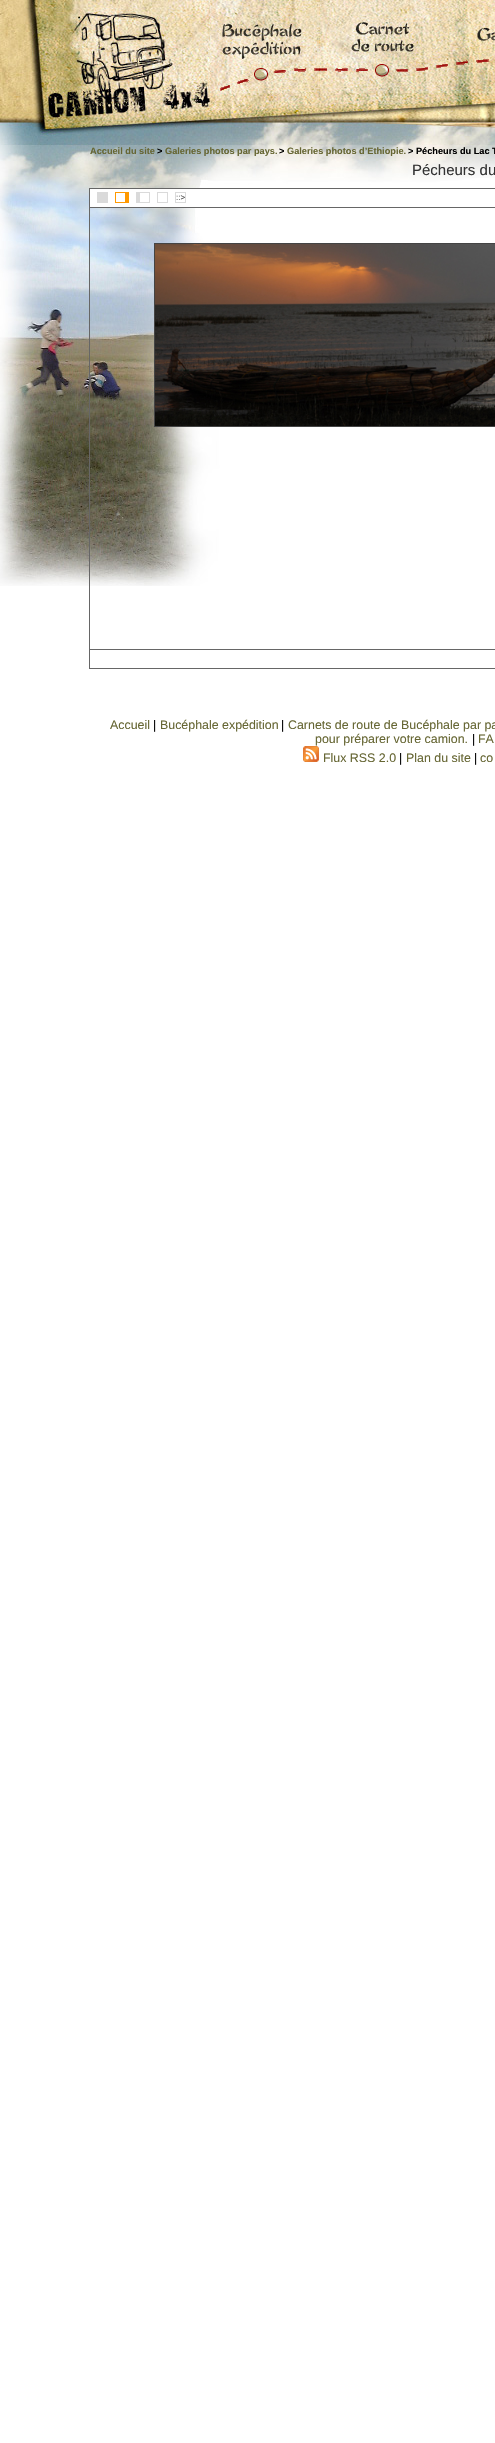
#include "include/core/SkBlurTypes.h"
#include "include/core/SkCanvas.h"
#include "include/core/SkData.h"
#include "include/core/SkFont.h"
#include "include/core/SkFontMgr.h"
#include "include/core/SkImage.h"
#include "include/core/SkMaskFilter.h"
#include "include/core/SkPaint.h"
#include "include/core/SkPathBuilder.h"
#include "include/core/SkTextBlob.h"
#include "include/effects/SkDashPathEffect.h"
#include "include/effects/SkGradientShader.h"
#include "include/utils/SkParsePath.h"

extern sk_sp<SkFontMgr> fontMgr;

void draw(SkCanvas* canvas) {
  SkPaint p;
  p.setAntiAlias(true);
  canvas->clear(SK_ColorWHITE);
  canvas->drawImageRect(SkImages::DeferredFromEncodedData(SkData::MakeFromFileName("images/1.png")), SkRect::MakeLTRB(0, 0, 495, 145), SkSamplingOptions());
  canvas->drawImageRect(SkImages::DeferredFromEncodedData(SkData::MakeFromFileName("images/2.png")), SkRect::MakeLTRB(210, 0, 319, 93), SkSamplingOptions());
  canvas->drawImageRect(SkImages::DeferredFromEncodedData(SkData::MakeFromFileName("images/3.png")), SkRect::MakeLTRB(320, 0, 440, 93), SkSamplingOptions());
  canvas->drawImageRect(SkImages::DeferredFromEncodedData(SkData::MakeFromFileName("images/4.png")), SkRect::MakeLTRB(440, 0, 495, 93), SkSamplingOptions());
  canvas->drawImageRect(SkImages::DeferredFromEncodedData(SkData::MakeFromFileName("images/5.png")), SkRect::MakeLTRB(0, 145, 495, 586), SkSamplingOptions());
  p.setStyle(SkPaint::kStroke_Style);
  p.setStrokeWidth(1);
  p.setColor(SkColorSetRGB(102, 102, 102));
  canvas->drawRect(SkRect::MakeLTRB(89.5f, 188.5f, 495.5f, 649.5f), p);
  p.setStyle(SkPaint::kFill_Style);
  p.setColor(SK_ColorWHITE);
  canvas->drawRect(SkRect::MakeLTRB(90, 189, 200, 207), p);
  p.setColor(SkColorSetRGB(102, 102, 102));
  canvas->drawRect(SkRect::MakeLTRB(90, 207, 495, 208), p);
  p.setColor(SkColorSetRGB(218, 218, 218));
  canvas->drawRect(SkRect::MakeLTRB(97, 192, 108, 203), p);
  p.setColor(SkColorSetRGB(255, 153, 0));
  canvas->drawRect(SkRect::MakeLTRB(115, 192, 129, 193), p);
  canvas->drawRect(SkRect::MakeLTRB(125, 192, 129, 203), p);
  canvas->drawRect(SkRect::MakeLTRB(115, 202, 129, 203), p);
  canvas->drawRect(SkRect::MakeLTRB(115, 192, 116, 203), p);
  p.setColor(SkColorSetRGB(218, 218, 218));
  canvas->drawRect(SkRect::MakeLTRB(136, 192, 150, 193), p);
  canvas->drawRect(SkRect::MakeLTRB(149, 192, 150, 203), p);
  canvas->drawRect(SkRect::MakeLTRB(136, 202, 150, 203), p);
  canvas->drawRect(SkRect::MakeLTRB(136, 192, 140, 203), p);
  p.setStyle(SkPaint::kStroke_Style);
  canvas->drawRect(SkRect::MakeLTRB(157.5f, 192.5f, 167.5f, 202.5f), p);
  canvas->drawRect(SkRect::MakeLTRB(175.5f, 192.5f, 185.5f, 202.5f), p);
  p.setColor(SkColorSetRGB(68, 68, 68));
  canvas->drawRect(SkRect::MakeLTRB(154.5f, 243.5f, 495.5f, 426.5f), p);
  canvas->drawImageRect(SkImages::DeferredFromEncodedData(SkData::MakeFromFileName("images/6.png")), SkRect::MakeLTRB(155, 244, 495, 426), SkSamplingOptions());
  p.setStyle(SkPaint::kFill_Style);
  p.setColor(SkColorSetRGB(102, 102, 102));
  canvas->drawRect(SkRect::MakeLTRB(89, 668, 495, 669), p);
  canvas->drawRect(SkRect::MakeLTRB(89, 650, 90, 669), p);
  canvas->drawImageRect(SkImages::DeferredFromEncodedData(SkData::MakeFromFileName("images/7.png")), SkRect::MakeLTRB(303, 746, 319, 762), SkSamplingOptions());
  SkFont font1(fontMgr->matchFamilyStyle("Liberation Sans", SkFontStyle::Bold()), 9.2f);
  font1.setSubpixel(true);
  p.setColor(SkColorSetRGB(102, 102, 51));
  canvas->drawString("Accueil du site", 90, 154, font1, p);
  p.setColor(SK_ColorBLACK);
  canvas->drawString(">", 157, 154, font1, p);
  p.setColor(SkColorSetRGB(102, 102, 51));
  canvas->drawString("Galeries photos par pays.", 165, 154, font1, p);
  p.setColor(SK_ColorBLACK);
  canvas->drawString(">", 279, 154, font1, p);
  p.setColor(SkColorSetRGB(102, 102, 51));
  canvas->drawString("Galeries photos d’Ethiopie.", 287, 154, font1, p);
  p.setColor(SK_ColorBLACK);
  canvas->drawString("> Pécheurs du Lac T", 408, 154, font1, p);
  SkFont font2(fontMgr->matchFamilyStyle("Liberation Sans", SkFontStyle::Normal()), 15);
  font2.setSubpixel(true);
  p.setColor(SkColorSetRGB(51, 51, 51));
  canvas->drawString("Pécheurs du", 412, 175, font2, p);
  SkFont font3(fontMgr->matchFamilyStyle("Liberation Sans", SkFontStyle::Normal()), 8);
  font3.setSubpixel(true);
  p.setColor(SkColorSetRGB(68, 68, 68));
  canvas->drawString("::>", 176, 200, font3, p);
  SkFont font4(fontMgr->matchFamilyStyle("Liberation Sans", SkFontStyle::Normal()), 12.4f);
  font4.setSubpixel(true);
  p.setColor(SkColorSetRGB(102, 102, 51));
  canvas->drawString("Accueil", 110, 729, font4, p);
  p.setColor(SK_ColorBLACK);
  canvas->drawString("|", 153, 729, font4, p);
  p.setColor(SkColorSetRGB(102, 102, 51));
  canvas->drawString("Bucéphale expédition", 160, 729, font4, p);
  p.setColor(SK_ColorBLACK);
  canvas->drawString("|", 281, 729, font4, p);
  p.setColor(SkColorSetRGB(102, 102, 51));
  canvas->drawString("Carnets de route de Bucéphale par pa", 288, 729, font4, p);
  canvas->drawString("pour préparer votre camion.", 315, 743, font4, p);
  p.setColor(SK_ColorBLACK);
  canvas->drawString("|", 472, 743, font4, p);
  p.setColor(SkColorSetRGB(102, 102, 51));
  canvas->drawString("FA", 478, 743, font4, p);
  canvas->drawString("Flux RSS 2.0", 323, 762, font4, p);
  p.setColor(SK_ColorBLACK);
  canvas->drawString("|", 399, 762, font4, p);
  p.setColor(SkColorSetRGB(102, 102, 51));
  canvas->drawString("Plan du site", 406, 762, font4, p);
  p.setColor(SK_ColorBLACK);
  canvas->drawString("|", 474, 762, font4, p);
  p.setColor(SkColorSetRGB(102, 102, 51));
  canvas->drawString("co", 480, 762, font4, p);
}
